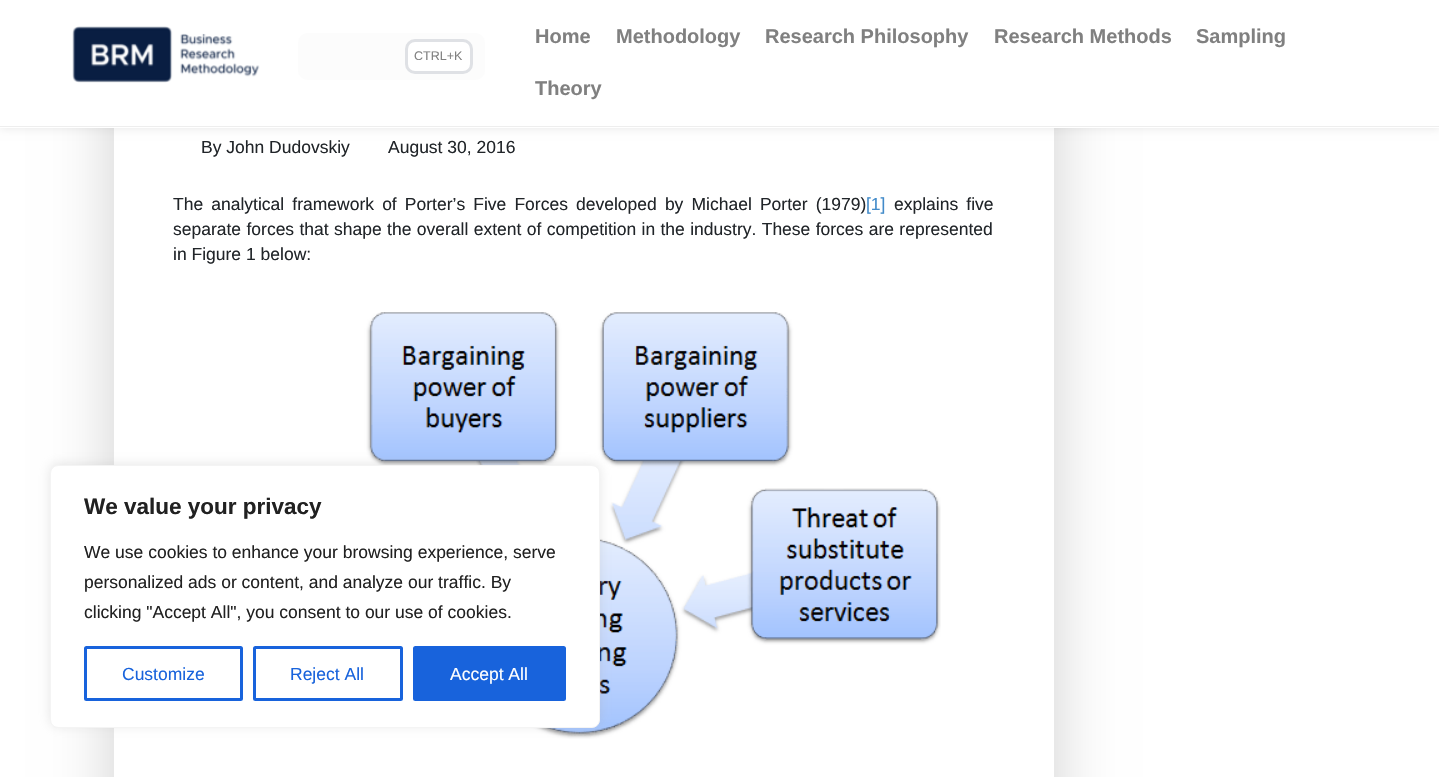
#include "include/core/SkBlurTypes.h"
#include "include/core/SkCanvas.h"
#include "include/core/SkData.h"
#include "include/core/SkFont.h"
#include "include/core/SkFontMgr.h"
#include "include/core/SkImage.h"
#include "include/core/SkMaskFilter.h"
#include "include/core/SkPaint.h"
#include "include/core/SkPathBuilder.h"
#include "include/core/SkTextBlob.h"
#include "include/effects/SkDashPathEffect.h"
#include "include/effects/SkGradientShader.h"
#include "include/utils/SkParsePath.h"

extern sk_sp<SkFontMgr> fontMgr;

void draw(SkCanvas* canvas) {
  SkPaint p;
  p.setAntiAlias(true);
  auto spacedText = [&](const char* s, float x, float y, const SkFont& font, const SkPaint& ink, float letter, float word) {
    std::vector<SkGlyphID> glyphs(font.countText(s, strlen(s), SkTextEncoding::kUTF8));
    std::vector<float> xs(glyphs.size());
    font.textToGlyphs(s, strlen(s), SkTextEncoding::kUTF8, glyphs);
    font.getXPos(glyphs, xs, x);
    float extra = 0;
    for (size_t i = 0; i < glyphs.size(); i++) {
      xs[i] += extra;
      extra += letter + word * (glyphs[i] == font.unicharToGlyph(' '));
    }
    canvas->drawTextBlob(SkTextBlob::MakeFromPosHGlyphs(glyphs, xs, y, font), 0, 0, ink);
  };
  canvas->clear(SK_ColorWHITE);
  p.setColor(SkColorSetARGB(46, 0, 0, 0));
  p.setMaskFilter(SkMaskFilter::MakeBlur(kNormal_SkBlurStyle, 30));
  canvas->drawRect(SkRect::MakeLTRB(114, 31, 1054, 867), p);
  p.setMaskFilter(nullptr);
  p.setColor(SK_ColorWHITE);
  canvas->drawRect(SkRect::MakeLTRB(114, 128, 1054, 777), p);
  p.setColor(SkColorSetARGB(26, 0, 0, 0));
  p.setMaskFilter(SkMaskFilter::MakeBlur(kNormal_SkBlurStyle, 4.5f));
  canvas->drawRect(SkRect::MakeLTRB(0, 0, 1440, 128), p);
  p.setMaskFilter(nullptr);
  p.setColor(SK_ColorWHITE);
  canvas->drawRect(SkRect::MakeLTRB(0, 0, 1439, 128), p);
  p.setColor(SkColorSetRGB(238, 238, 238));
  canvas->drawRect(SkRect::MakeLTRB(0, 126, 1439, 127), p);
  canvas->drawImageRect(SkImages::DeferredFromEncodedData(SkData::MakeFromFileName("images/1.png")), SkRect::MakeLTRB(72, 26, 260, 83), SkSamplingOptions());
  p.setColor(SkColorSetRGB(252, 252, 252));
  canvas->drawRoundRect(SkRect::MakeLTRB(298, 33, 485, 80), 10, 10, p);
  p.setColor(SK_ColorWHITE);
  canvas->drawRoundRect(SkRect::MakeLTRB(406.5f, 40.5f, 471.5f, 72.5f), 8.5f, 8.5f, p);
  p.setStyle(SkPaint::kStroke_Style);
  p.setStrokeWidth(3);
  p.setColor(SkColorSetRGB(223, 225, 229));
  canvas->drawRoundRect(SkRect::MakeLTRB(406.5f, 40.5f, 471.5f, 72.5f), 8.5f, 8.5f, p);
  canvas->drawImageRect(SkImages::DeferredFromEncodedData(SkData::MakeFromFileName("images/2.png")), SkRect::MakeLTRB(218, 312, 941, 739), SkSamplingOptions());
  p.setStyle(SkPaint::kFill_Style);
  p.setColor(SkColorSetARGB(77, 172, 171, 171));
  p.setMaskFilter(SkMaskFilter::MakeBlur(kNormal_SkBlurStyle, 6));
  canvas->drawRoundRect(SkRect::MakeLTRB(50, 464, 600, 726), 8, 8, p);
  p.setMaskFilter(nullptr);
  p.setColor(SK_ColorWHITE);
  canvas->drawRoundRect(SkRect::MakeLTRB(50.5f, 465.5f, 599.5f, 727.5f), 7.5f, 7.5f, p);
  p.setStyle(SkPaint::kStroke_Style);
  p.setStrokeWidth(1);
  p.setColor(SkColorSetRGB(244, 244, 244));
  canvas->drawRoundRect(SkRect::MakeLTRB(50.5f, 465.5f, 599.5f, 727.5f), 7.5f, 7.5f, p);
  p.setStrokeWidth(3);
  p.setColor(SkColorSetRGB(24, 99, 220));
  canvas->drawRoundRect(SkRect::MakeLTRB(85.5f, 647.5f, 241.5f, 699.5f), 1, 1, p);
  canvas->drawRoundRect(SkRect::MakeLTRB(254.5f, 647.5f, 401.5f, 699.5f), 1, 1, p);
  p.setStyle(SkPaint::kFill_Style);
  canvas->drawRoundRect(SkRect::MakeLTRB(414.5f, 647.5f, 564.5f, 699.5f), 1, 1, p);
  p.setStyle(SkPaint::kStroke_Style);
  canvas->drawRoundRect(SkRect::MakeLTRB(414.5f, 647.5f, 564.5f, 699.5f), 1, 1, p);
  SkFont font1(fontMgr->matchFamilyStyle("Liberation Sans", SkFontStyle::Normal()), 12.5f);
  font1.setSubpixel(true);
  p.setStyle(SkPaint::kFill_Style);
  p.setColor(SkColorSetRGB(128, 128, 128));
  canvas->drawString("CTRL+K", 414, 60, font1, p);
  SkFont font2(fontMgr->matchFamilyStyle("Liberation Sans", SkFontStyle::Bold()), 20);
  font2.setSubpixel(true);
  canvas->drawString("Home", 535, 43, font2, p);
  canvas->drawString("Methodology", 616, 43, font2, p);
  canvas->drawString("Research Philosophy", 765, 43, font2, p);
  canvas->drawString("Research Methods", 994, 43, font2, p);
  canvas->drawString("Sampling", 1196, 43, font2, p);
  canvas->drawString("Theory", 535, 95, font2, p);
  SkFont font3(fontMgr->matchFamilyStyle("Liberation Sans", SkFontStyle::Normal()), 17.5f);
  font3.setSubpixel(true);
  p.setColor(SkColorSetRGB(33, 37, 41));
  canvas->drawString("By John Dudovskiy", 201, 153, font3, p);
  canvas->drawString("August 30, 2016", 388, 153, font3, p);
  spacedText("The analytical framework of Porter’s Five Forces developed by Michael Porter (1979)", 173, 210, font3, p, 0, 3.25f);
  p.setColor(SkColorSetRGB(66, 139, 202));
  canvas->drawString("[1]", 866, 210, font3, p);
  p.setColor(SkColorSetRGB(33, 37, 41));
  spacedText("explains five", 894, 210, font3, p, 0, 3.25f);
  spacedText("separate forces that shape the overall extent of competition in the industry. These forces are represented", 173, 235, font3, p, 0, 0.5f);
  canvas->drawString("in Figure 1 below:", 173, 260, font3, p);
  SkFont font4(fontMgr->matchFamilyStyle("Liberation Sans", SkFontStyle::Bold()), 22.5f);
  font4.setSubpixel(true);
  p.setColor(SkColorSetRGB(33, 33, 33));
  canvas->drawString("We value your privacy", 84, 514, font4, p);
  canvas->drawString("We use cookies to enhance your browsing experience, serve", 84, 558, font3, p);
  canvas->drawString("personalized ads or content, and analyze our traffic. By", 84, 588, font3, p);
  canvas->drawString("clicking \"Accept All\", you consent to our use of cookies.", 84, 618, font3, p);
  p.setColor(SkColorSetRGB(24, 99, 220));
  canvas->drawString("Customize", 122, 680, font3, p);
  canvas->drawString("Reject All", 290, 680, font3, p);
  p.setColor(SK_ColorWHITE);
  canvas->drawString("Accept All", 450, 680, font3, p);
}
